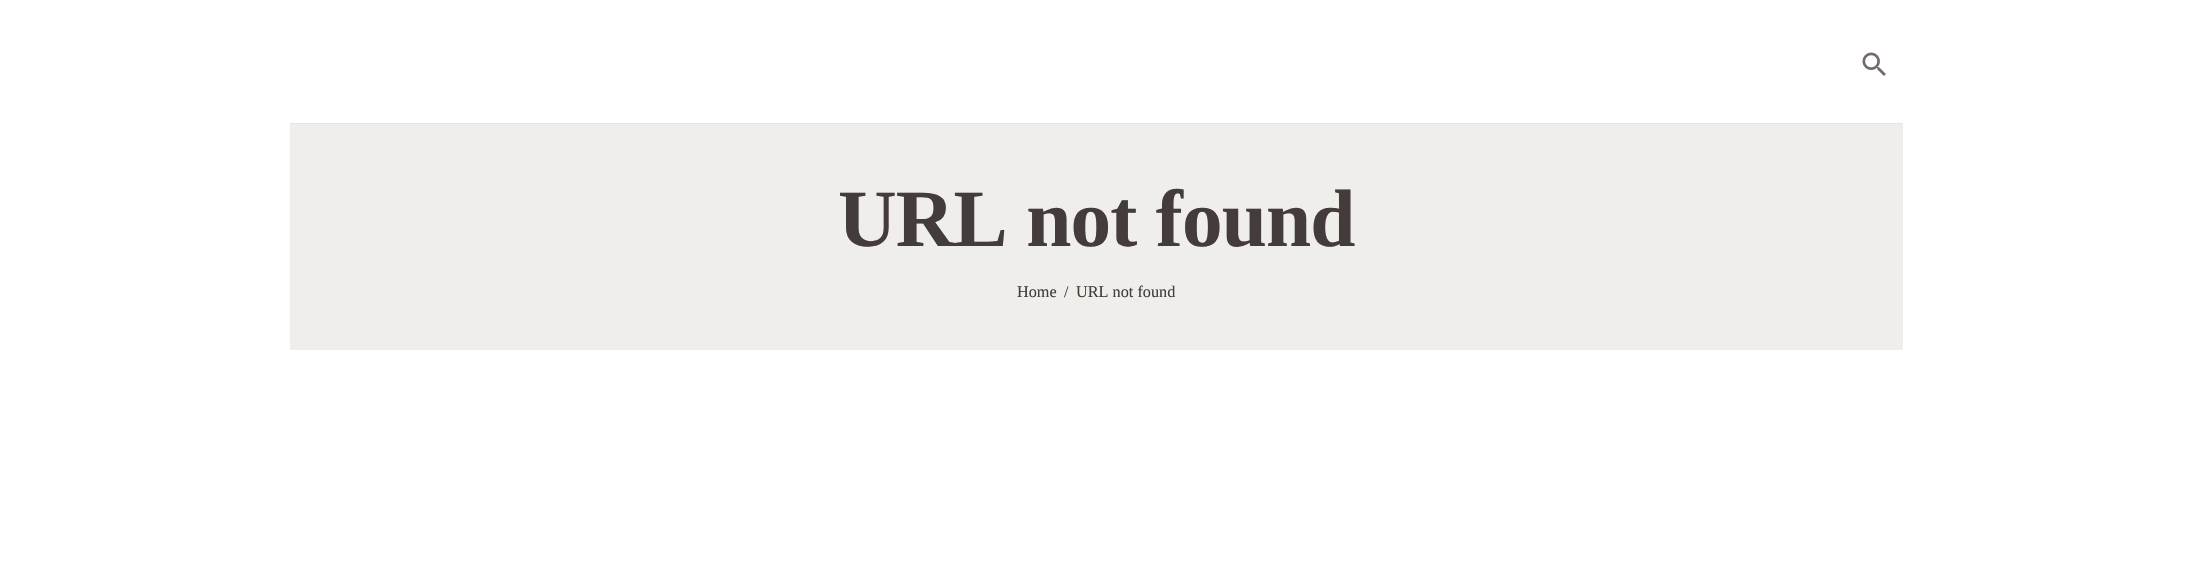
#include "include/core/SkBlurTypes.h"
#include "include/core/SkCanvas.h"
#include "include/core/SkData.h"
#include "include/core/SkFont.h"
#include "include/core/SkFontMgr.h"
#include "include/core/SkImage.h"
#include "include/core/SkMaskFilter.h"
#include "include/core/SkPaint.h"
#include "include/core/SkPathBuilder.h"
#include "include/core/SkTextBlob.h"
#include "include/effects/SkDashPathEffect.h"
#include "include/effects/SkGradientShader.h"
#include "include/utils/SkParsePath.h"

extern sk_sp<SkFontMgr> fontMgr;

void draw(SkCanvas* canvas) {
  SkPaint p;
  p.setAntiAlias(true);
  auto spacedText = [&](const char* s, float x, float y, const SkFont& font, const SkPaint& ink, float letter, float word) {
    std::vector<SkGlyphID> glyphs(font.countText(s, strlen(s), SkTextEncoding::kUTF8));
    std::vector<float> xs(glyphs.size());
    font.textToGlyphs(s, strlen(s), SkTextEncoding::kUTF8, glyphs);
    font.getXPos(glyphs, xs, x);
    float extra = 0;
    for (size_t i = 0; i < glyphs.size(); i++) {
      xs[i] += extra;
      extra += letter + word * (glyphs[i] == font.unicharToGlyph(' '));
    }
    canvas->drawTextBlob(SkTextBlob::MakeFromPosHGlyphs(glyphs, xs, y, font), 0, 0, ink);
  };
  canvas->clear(SK_ColorWHITE);
  p.setColor(SkColorSetRGB(229, 229, 229));
  canvas->drawRect(SkRect::MakeLTRB(290, 123, 1903, 124), p);
  canvas->drawImageRect(SkImages::DeferredFromEncodedData(SkData::MakeFromFileName("images/1.png")), SkRect::MakeLTRB(1862, 52, 1886, 76), SkSamplingOptions());
  p.setColor(SkColorSetRGB(240, 238, 234));
  canvas->drawRect(SkRect::MakeLTRB(290, 124, 1903, 350), p);
  SkFont font1(fontMgr->matchFamilyStyle("Liberation Serif", SkFontStyle::Bold()), 81.25f);
  font1.setSubpixel(true);
  p.setColor(SkColorSetRGB(68, 59, 59));
  spacedText("URL not found", 838, 246, font1, p, -0.9f, 0);
  SkFont font2(fontMgr->matchFamilyStyle("Liberation Serif", SkFontStyle::Normal()), 16.25f);
  font2.setSubpixel(true);
  canvas->drawString("Home", 1017, 297, font2, p);
  canvas->drawString("/", 1064, 297, font2, p);
  canvas->drawString("URL not found", 1076, 297, font2, p);
}
